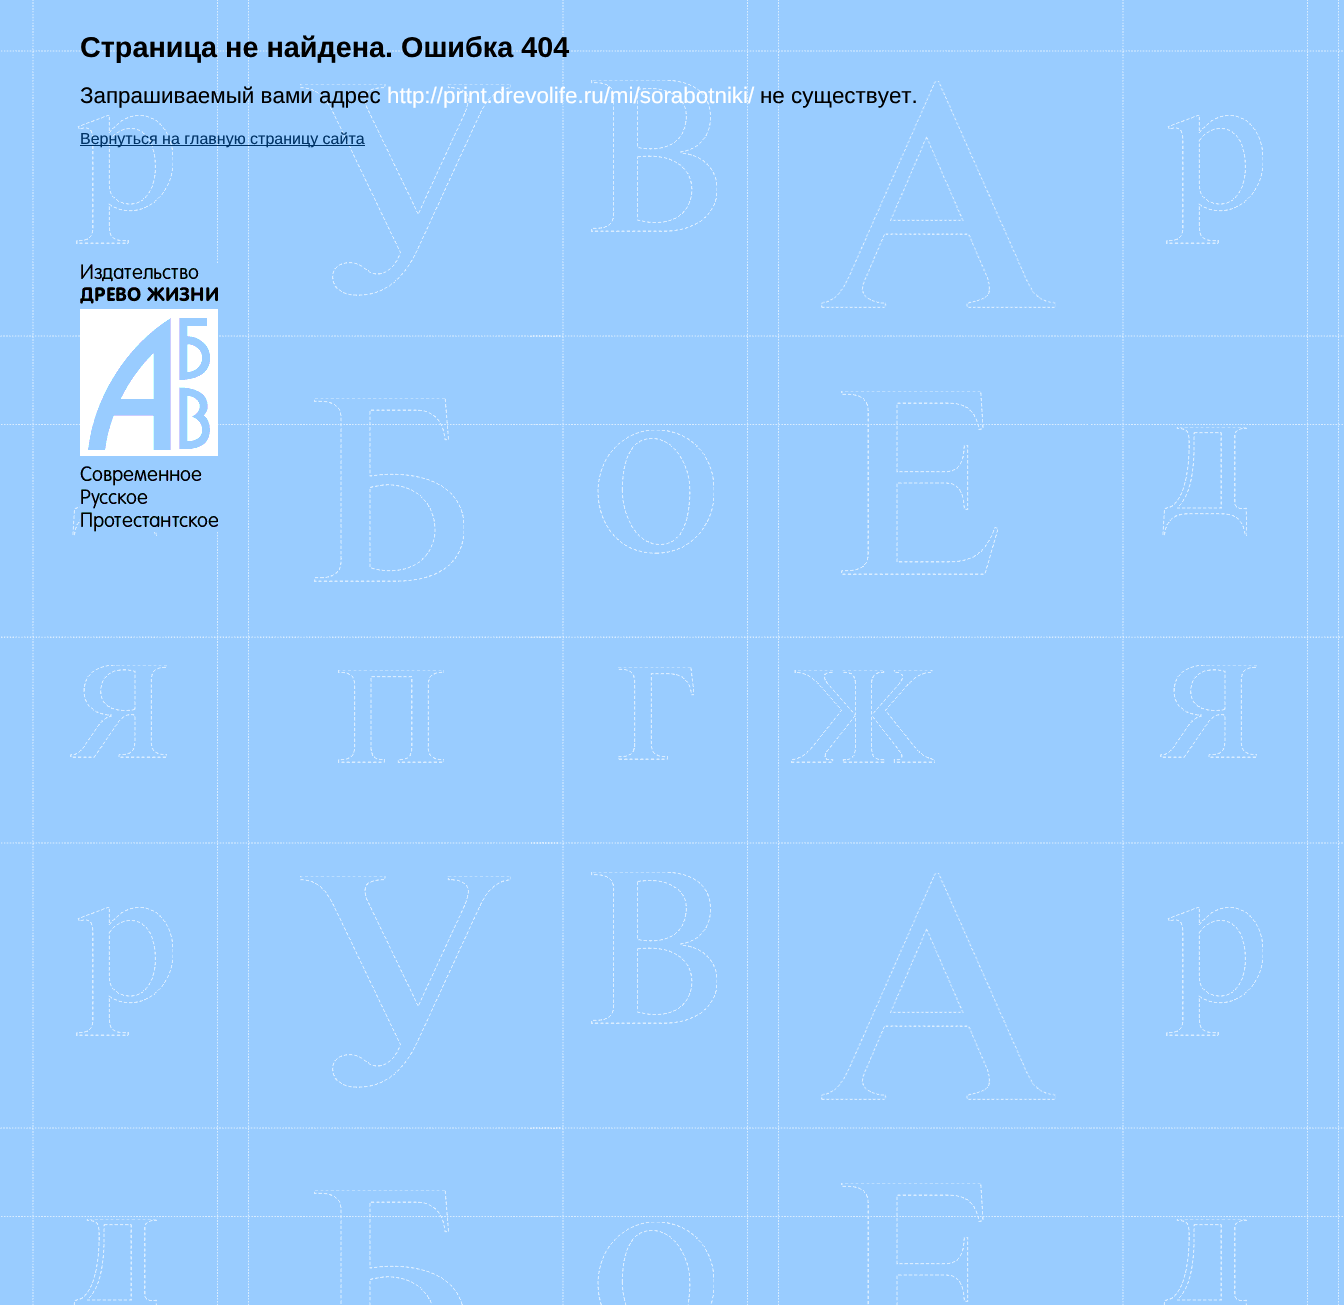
#include "include/core/SkBlurTypes.h"
#include "include/core/SkCanvas.h"
#include "include/core/SkData.h"
#include "include/core/SkFont.h"
#include "include/core/SkFontMgr.h"
#include "include/core/SkImage.h"
#include "include/core/SkMaskFilter.h"
#include "include/core/SkPaint.h"
#include "include/core/SkPathBuilder.h"
#include "include/core/SkTextBlob.h"
#include "include/effects/SkDashPathEffect.h"
#include "include/effects/SkGradientShader.h"
#include "include/utils/SkParsePath.h"

extern sk_sp<SkFontMgr> fontMgr;

void draw(SkCanvas* canvas) {
  SkPaint p;
  p.setAntiAlias(true);
  canvas->clear(SkColorSetRGB(153, 204, 255));
  canvas->drawImageRect(SkImages::DeferredFromEncodedData(SkData::MakeFromFileName("images/1.png")), SkRect::MakeLTRB(0, 0, 1344, 1305), SkSamplingOptions());
  p.setColor(SkColorSetRGB(0, 51, 102));
  canvas->drawRect(SkRect::MakeLTRB(80, 145, 365, 146), p);
  canvas->drawImageRect(SkImages::DeferredFromEncodedData(SkData::MakeFromFileName("images/2.png")), SkRect::MakeLTRB(80, 264, 218, 532), SkSamplingOptions());
  SkFont font1(fontMgr->matchFamilyStyle("Liberation Sans", SkFontStyle::Bold()), 28.75f);
  font1.setSubpixel(true);
  p.setColor(SK_ColorBLACK);
  canvas->drawString("Страница не найдена. Ошибка 404", 80, 57, font1, p);
  SkFont font2(fontMgr->matchFamilyStyle("Liberation Sans", SkFontStyle::Normal()), 22.4f);
  font2.setSubpixel(true);
  canvas->drawString("Запрашиваемый вами адрес", 80, 103, font2, p);
  p.setColor(SK_ColorWHITE);
  canvas->drawString("http://print.drevolife.ru/mi/sorabotniki/", 387, 103, font2, p);
  p.setColor(SK_ColorBLACK);
  canvas->drawString("не существует.", 760, 103, font2, p);
  SkFont font3(fontMgr->matchFamilyStyle("Liberation Sans", SkFontStyle::Normal()), 16);
  font3.setSubpixel(true);
  p.setColor(SkColorSetRGB(0, 51, 102));
  canvas->drawString("Вернуться на главную страницу сайта", 80, 144, font3, p);
}
